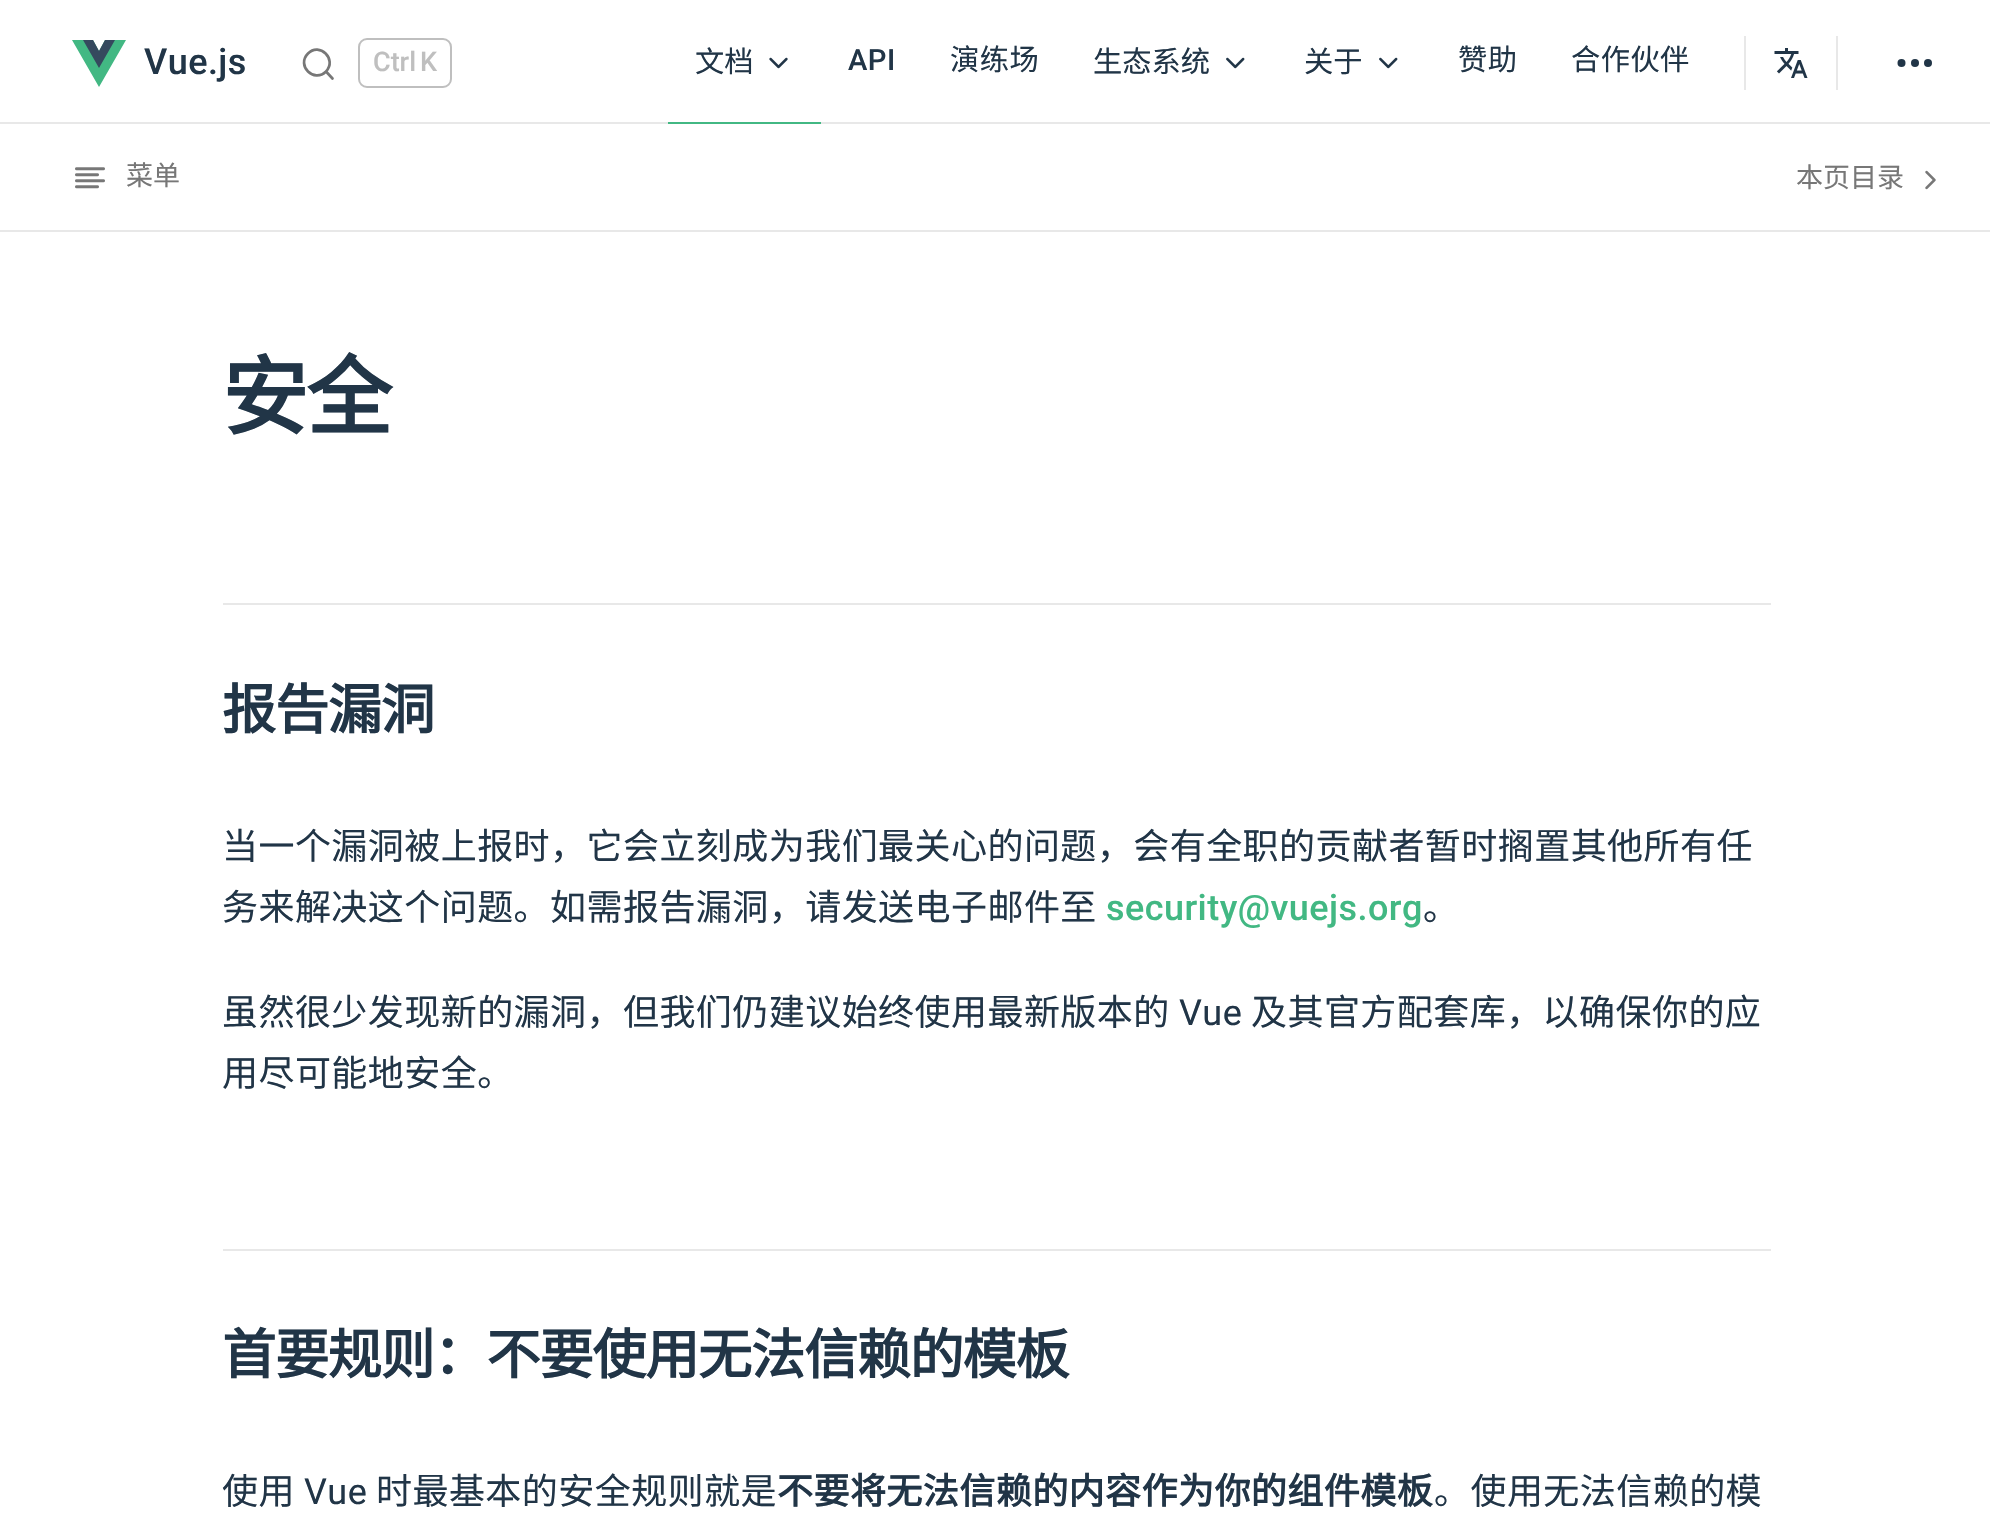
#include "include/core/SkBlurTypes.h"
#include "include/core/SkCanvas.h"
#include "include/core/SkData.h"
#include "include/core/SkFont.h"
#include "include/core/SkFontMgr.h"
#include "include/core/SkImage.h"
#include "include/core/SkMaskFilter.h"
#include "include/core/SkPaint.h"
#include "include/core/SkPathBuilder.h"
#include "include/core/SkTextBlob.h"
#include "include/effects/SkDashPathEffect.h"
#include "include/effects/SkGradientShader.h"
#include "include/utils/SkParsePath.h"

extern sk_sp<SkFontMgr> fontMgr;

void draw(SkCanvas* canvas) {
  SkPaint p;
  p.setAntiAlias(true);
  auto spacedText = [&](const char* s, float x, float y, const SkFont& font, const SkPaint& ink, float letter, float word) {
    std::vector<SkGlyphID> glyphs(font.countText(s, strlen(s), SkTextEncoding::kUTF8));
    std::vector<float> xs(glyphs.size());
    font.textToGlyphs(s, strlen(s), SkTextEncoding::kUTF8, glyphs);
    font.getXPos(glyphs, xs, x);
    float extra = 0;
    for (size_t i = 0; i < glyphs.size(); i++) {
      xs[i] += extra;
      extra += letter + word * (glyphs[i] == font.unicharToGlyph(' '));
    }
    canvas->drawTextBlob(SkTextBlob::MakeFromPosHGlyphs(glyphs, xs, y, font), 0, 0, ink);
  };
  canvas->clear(SK_ColorWHITE);
  p.setColor(SkColorSetRGB(232, 232, 232));
  canvas->drawRect(SkRect::MakeLTRB(0, 122, 1990, 124), p);
  p.setColor(SkColorSetRGB(66, 184, 131));
  canvas->drawPath(SkPathBuilder().moveTo(105, 40).lineTo(99, 51).lineTo(93, 40).lineTo(72, 40).lineTo(99, 87).lineTo(126, 40).close().detach(), p);
  p.setColor(SkColorSetRGB(53, 73, 94));
  canvas->drawPath(SkPathBuilder().moveTo(105, 40).lineTo(99, 51).lineTo(93, 40).lineTo(83, 40).lineTo(99, 68).lineTo(115, 40).close().detach(), p);
  p.setStyle(SkPaint::kStroke_Style);
  p.setStrokeWidth(2.7f);
  p.setStrokeCap(SkPaint::kRound_Cap);
  p.setStrokeJoin(SkPaint::kRound_Join);
  p.setColor(SkColorSetRGB(119, 119, 119));
  canvas->drawPath(SkPathBuilder().moveTo(326, 71.5f).lineTo(332.5f, 78.5f).lineTo(326, 71.5f).cubicTo(314, 83.5f, 296, 65.5f, 308, 53.5f).cubicTo(319.5f, 41.5f, 337.5f, 59.5f, 326, 71.5f).close().detach(), p);
  p.setStrokeWidth(2);
  p.setStrokeCap(SkPaint::kButt_Cap);
  p.setStrokeJoin(SkPaint::kMiter_Join);
  p.setColor(SkColorSetRGB(191, 191, 191));
  canvas->drawRoundRect(SkRect::MakeLTRB(359, 39, 451, 87), 8, 8, p);
  p.setStyle(SkPaint::kFill_Style);
  p.setColor(SkColorSetRGB(66, 184, 131));
  canvas->drawRect(SkRect::MakeLTRB(668, 122, 821, 124), p);
  canvas->drawImageRect(SkImages::DeferredFromEncodedData(SkData::MakeFromFileName("images/1.png")), SkRect::MakeLTRB(769, 57, 788, 69), SkSamplingOptions());
  canvas->drawImageRect(SkImages::DeferredFromEncodedData(SkData::MakeFromFileName("images/2.png")), SkRect::MakeLTRB(1226, 57, 1245, 69), SkSamplingOptions());
  canvas->drawImageRect(SkImages::DeferredFromEncodedData(SkData::MakeFromFileName("images/2.png")), SkRect::MakeLTRB(1379, 57, 1398, 69), SkSamplingOptions());
  p.setColor(SkColorSetRGB(232, 232, 232));
  canvas->drawRect(SkRect::MakeLTRB(1744, 36, 1746, 90), p);
  canvas->drawImageRect(SkImages::DeferredFromEncodedData(SkData::MakeFromFileName("images/3.png")), SkRect::MakeLTRB(1774, 48, 1808, 78), SkSamplingOptions());
  canvas->drawRect(SkRect::MakeLTRB(1836, 36, 1838, 90), p);
  p.setColor(SkColorSetRGB(33, 53, 71));
  canvas->drawCircle(1915, 63, 4, p);
  canvas->drawCircle(1928, 63, 4, p);
  canvas->drawCircle(1901.5f, 63, 4, p);
  p.setColor(SkColorSetRGB(232, 232, 232));
  canvas->drawRect(SkRect::MakeLTRB(0, 230, 1990, 232), p);
  canvas->drawImageRect(SkImages::DeferredFromEncodedData(SkData::MakeFromFileName("images/4.png")), SkRect::MakeLTRB(75, 167, 105, 189), SkSamplingOptions());
  canvas->drawImageRect(SkImages::DeferredFromEncodedData(SkData::MakeFromFileName("images/5.png")), SkRect::MakeLTRB(1925, 170, 1936, 190), SkSamplingOptions());
  canvas->drawRect(SkRect::MakeLTRB(223, 603, 1771, 605), p);
  canvas->drawRect(SkRect::MakeLTRB(223, 1249, 1771, 1251), p);
  SkFont font1(fontMgr->matchFamilyStyle("Roboto", SkFontStyle(500, SkFontStyle::kNormal_Width, SkFontStyle::kUpright_Slant)), 36);
  font1.setSubpixel(true);
  p.setColor(SkColorSetRGB(33, 53, 71));
  spacedText("Vue.js", 144, 74, font1, p, 0.45f, 0);
  SkFont font2(fontMgr->matchFamilyStyle("Roboto", SkFontStyle(500, SkFontStyle::kNormal_Width, SkFontStyle::kUpright_Slant)), 27);
  font2.setSubpixel(true);
  p.setColor(SkColorSetRGB(191, 191, 191));
  canvas->drawString("Ctrl", 373, 71, font2, p);
  canvas->drawString("K", 420, 71, font2, p);
  SkFont font3(fontMgr->matchFamilyStyle("Noto Sans CJK SC", SkFontStyle::Normal()), 29.25f);
  font3.setSubpixel(true);
  p.setColor(SkColorSetRGB(33, 53, 71));
  canvas->drawString("文档", 695, 72, font3, p);
  SkFont font4(fontMgr->matchFamilyStyle("Roboto", SkFontStyle(500, SkFontStyle::kNormal_Width, SkFontStyle::kUpright_Slant)), 29.25f);
  font4.setSubpixel(true);
  spacedText("API", 848, 70, font4, p, 0.45f, 0);
  spacedText("演练场", 950, 70, font3, p, 0.45f, 0);
  canvas->drawString("生态系统", 1093, 72, font3, p);
  canvas->drawString("关于", 1304, 72, font3, p);
  spacedText("赞助", 1458, 70, font3, p, 0.45f, 0);
  spacedText("合作伙伴", 1571, 70, font3, p, 0.45f, 0);
  SkFont font5(fontMgr->matchFamilyStyle("Noto Sans CJK SC", SkFontStyle::Normal()), 27);
  font5.setSubpixel(true);
  p.setColor(SkColorSetRGB(119, 119, 119));
  canvas->drawString("菜单", 126, 185, font5, p);
  canvas->drawString("本页目录", 1796, 187, font5, p);
  SkFont font6(fontMgr->matchFamilyStyle("Noto Sans CJK SC", SkFontStyle::Bold()), 86);
  font6.setSubpixel(true);
  p.setColor(SkColorSetRGB(33, 53, 71));
  spacedText("安全", 222, 428, font6, p, -2, 0);
  SkFont font7(fontMgr->matchFamilyStyle("Noto Sans CJK SC", SkFontStyle::Bold()), 54);
  font7.setSubpixel(true);
  spacedText("报告漏洞", 222, 729, font7, p, -1.1f, 0);
  SkFont font8(fontMgr->matchFamilyStyle("Noto Sans CJK SC", SkFontStyle::Normal()), 36);
  font8.setSubpixel(true);
  spacedText("当一个漏洞被上报时，它会立刻成为我们最关心的问题，会有全职的贡献者暂时搁置其他所有任", 222, 859, font8, p, 0.45f, 0);
  spacedText("务来解决这个问题。如需报告漏洞，请发送电子邮件至", 222, 920, font8, p, 0.45f, 0);
  p.setColor(SkColorSetRGB(66, 184, 131));
  spacedText("security@vuejs.org", 1106, 920, font1, p, 0.45f, 0);
  p.setColor(SkColorSetRGB(33, 53, 71));
  spacedText("。", 1423, 920, font8, p, 0.45f, 0);
  spacedText("虽然很少发现新的漏洞，但我们仍建议始终使用最新版本的", 222, 1025, font8, p, 0.45f, 0);
  SkFont font9(fontMgr->matchFamilyStyle("Roboto", SkFontStyle::Normal()), 36);
  font9.setSubpixel(true);
  spacedText("Vue", 1179, 1025, font9, p, 0.45f, 0);
  spacedText("及其官方配套库，以确保你的应", 1251, 1025, font8, p, 0.45f, 0);
  spacedText("用尽可能地安全。", 222, 1086, font8, p, 0.45f, 0);
  spacedText("首要规则：不要使用无法信赖的模板", 222, 1374, font7, p, -1.1f, 0);
  spacedText("使用", 222, 1504, font8, p, 0.45f, 0);
  spacedText("Vue", 304, 1504, font9, p, 0.45f, 0);
  spacedText("时最基本的安全规则就是", 376, 1504, font8, p, 0.45f, 0);
  SkFont font10(fontMgr->matchFamilyStyle("Noto Sans CJK SC", SkFontStyle::Bold()), 36);
  font10.setSubpixel(true);
  spacedText("不要将无法信赖的内容作为你的组件模板", 777, 1504, font10, p, 0.45f, 0);
  spacedText("。使用无法信赖的模", 1434, 1504, font8, p, 0.45f, 0);
}
